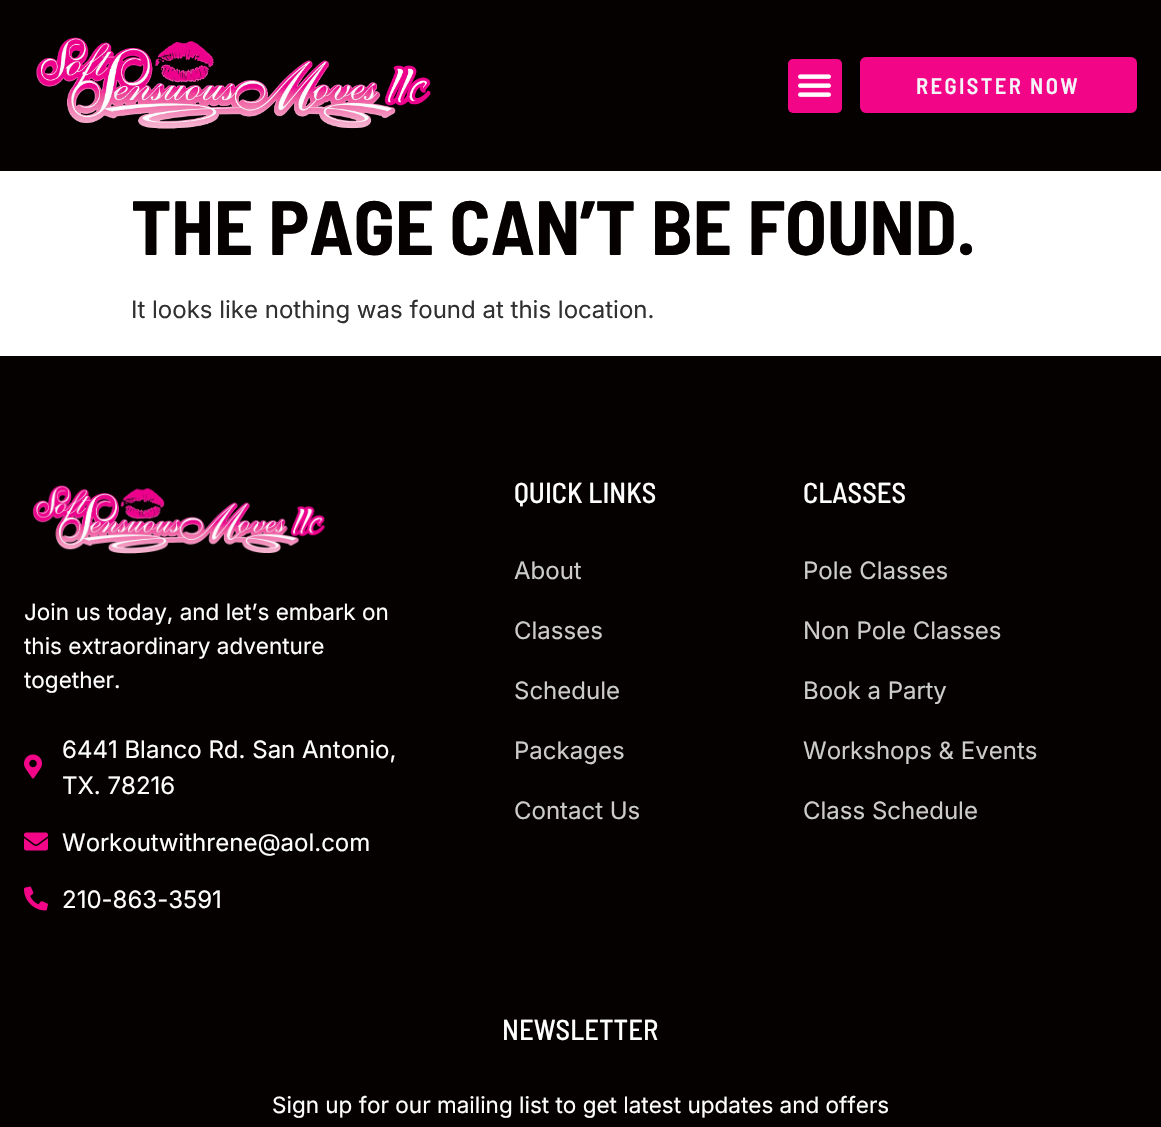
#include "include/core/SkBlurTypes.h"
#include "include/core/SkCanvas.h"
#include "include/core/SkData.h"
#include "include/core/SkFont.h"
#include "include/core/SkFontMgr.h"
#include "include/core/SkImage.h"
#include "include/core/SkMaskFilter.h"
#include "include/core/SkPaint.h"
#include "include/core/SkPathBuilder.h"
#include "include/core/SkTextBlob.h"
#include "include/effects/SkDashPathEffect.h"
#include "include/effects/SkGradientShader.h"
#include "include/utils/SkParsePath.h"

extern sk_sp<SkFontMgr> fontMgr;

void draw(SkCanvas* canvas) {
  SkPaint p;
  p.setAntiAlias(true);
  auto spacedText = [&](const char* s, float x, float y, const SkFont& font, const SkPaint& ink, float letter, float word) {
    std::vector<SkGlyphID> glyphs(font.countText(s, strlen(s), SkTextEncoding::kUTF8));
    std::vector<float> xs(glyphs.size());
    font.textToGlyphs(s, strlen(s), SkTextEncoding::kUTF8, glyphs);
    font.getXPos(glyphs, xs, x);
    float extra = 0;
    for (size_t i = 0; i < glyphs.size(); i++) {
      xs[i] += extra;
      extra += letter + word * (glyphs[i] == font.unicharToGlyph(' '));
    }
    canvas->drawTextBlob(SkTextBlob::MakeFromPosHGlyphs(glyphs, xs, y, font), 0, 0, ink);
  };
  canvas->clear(SK_ColorWHITE);
  p.setColor(SkColorSetRGB(5, 1, 1));
  canvas->drawRect(SkRect::MakeLTRB(0, 0, 1161, 171), p);
  canvas->drawImageRect(SkImages::DeferredFromEncodedData(SkData::MakeFromFileName("images/1.png")), SkRect::MakeLTRB(36, 37, 431, 129), SkSamplingOptions());
  p.setColor(SkColorSetRGB(242, 5, 135));
  canvas->drawRoundRect(SkRect::MakeLTRB(788, 59, 842, 113), 5, 5, p);
  canvas->drawImageRect(SkImages::DeferredFromEncodedData(SkData::MakeFromFileName("images/2.png")), SkRect::MakeLTRB(798, 74, 831, 97), SkSamplingOptions());
  canvas->drawRoundRect(SkRect::MakeLTRB(861, 58, 1136, 112), 5, 5, p);
  p.setStyle(SkPaint::kStroke_Style);
  p.setStrokeWidth(2);
  canvas->drawRoundRect(SkRect::MakeLTRB(861, 58, 1136, 112), 5, 5, p);
  p.setStyle(SkPaint::kFill_Style);
  p.setColor(SkColorSetRGB(5, 1, 1));
  canvas->drawRect(SkRect::MakeLTRB(0, 356, 1161, 1127), p);
  canvas->drawImageRect(SkImages::DeferredFromEncodedData(SkData::MakeFromFileName("images/3.png")), SkRect::MakeLTRB(32, 485, 326, 554), SkSamplingOptions());
  canvas->drawImageRect(SkImages::DeferredFromEncodedData(SkData::MakeFromFileName("images/4.png")), SkRect::MakeLTRB(24, 754, 42, 779), SkSamplingOptions());
  canvas->drawImageRect(SkImages::DeferredFromEncodedData(SkData::MakeFromFileName("images/5.png")), SkRect::MakeLTRB(24, 832, 48, 851), SkSamplingOptions());
  canvas->drawImageRect(SkImages::DeferredFromEncodedData(SkData::MakeFromFileName("images/6.png")), SkRect::MakeLTRB(24, 886, 48, 911), SkSamplingOptions());
  SkFont font1(fontMgr->matchFamilyStyle("Barlow Semi Condensed", SkFontStyle(600, SkFontStyle::kNormal_Width, SkFontStyle::kUpright_Slant)), 22.5f);
  font1.setSubpixel(true);
  p.setColor(SkColorSetRGB(243, 245, 248));
  spacedText("REGISTER NOW", 916, 94, font1, p, 2.4f, 0);
  SkFont font2(fontMgr->matchFamilyStyle("Barlow Semi Condensed", SkFontStyle::Bold()), 76.75f);
  font2.setSubpixel(true);
  p.setColor(SkColorSetRGB(5, 1, 1));
  canvas->drawString("THE PAGE CAN’T BE FOUND.", 131, 255, font2, p);
  SkFont font3(fontMgr->matchFamilyStyle("Inter", SkFontStyle::Normal()), 24);
  font3.setSubpixel(true);
  p.setColor(SkColorSetRGB(48, 48, 48));
  canvas->drawString("It looks like nothing was found at this location.", 131, 318, font3, p);
  SkFont font4(fontMgr->matchFamilyStyle("Inter", SkFontStyle::Normal()), 22.5f);
  font4.setSubpixel(true);
  p.setColor(SK_ColorWHITE);
  canvas->drawString("Join us today, and let’s embark on", 24, 620, font4, p);
  canvas->drawString("this extraordinary adventure", 24, 654, font4, p);
  canvas->drawString("together.", 24, 688, font4, p);
  canvas->drawString("6441 Blanco Rd. San Antonio,", 62, 758, font3, p);
  canvas->drawString("TX. 78216", 62, 794, font3, p);
  canvas->drawString("Workoutwithrene@aol.com", 62, 851, font3, p);
  canvas->drawString("210-863-3591", 62, 908, font3, p);
  SkFont font5(fontMgr->matchFamilyStyle("Barlow Semi Condensed", SkFontStyle(500, SkFontStyle::kNormal_Width, SkFontStyle::kUpright_Slant)), 28.75f);
  font5.setSubpixel(true);
  canvas->drawString("QUICK LINKS", 514, 503, font5, p);
  p.setColor(SkColorSetRGB(204, 204, 204));
  canvas->drawString("About", 514, 579, font3, p);
  canvas->drawString("Classes", 514, 639, font3, p);
  canvas->drawString("Schedule", 514, 699, font3, p);
  canvas->drawString("Packages", 514, 759, font3, p);
  canvas->drawString("Contact Us", 514, 819, font3, p);
  p.setColor(SK_ColorWHITE);
  canvas->drawString("CLASSES", 803, 503, font5, p);
  p.setColor(SkColorSetRGB(204, 204, 204));
  canvas->drawString("Pole Classes", 803, 579, font3, p);
  canvas->drawString("Non Pole Classes", 803, 639, font3, p);
  canvas->drawString("Book a Party", 803, 699, font3, p);
  canvas->drawString("Workshops & Events", 803, 759, font3, p);
  canvas->drawString("Class Schedule", 803, 819, font3, p);
  p.setColor(SK_ColorWHITE);
  canvas->drawString("NEWSLETTER", 502, 1040, font5, p);
  canvas->drawString("Sign up for our mailing list to get latest updates and offers", 272, 1113, font4, p);
}
